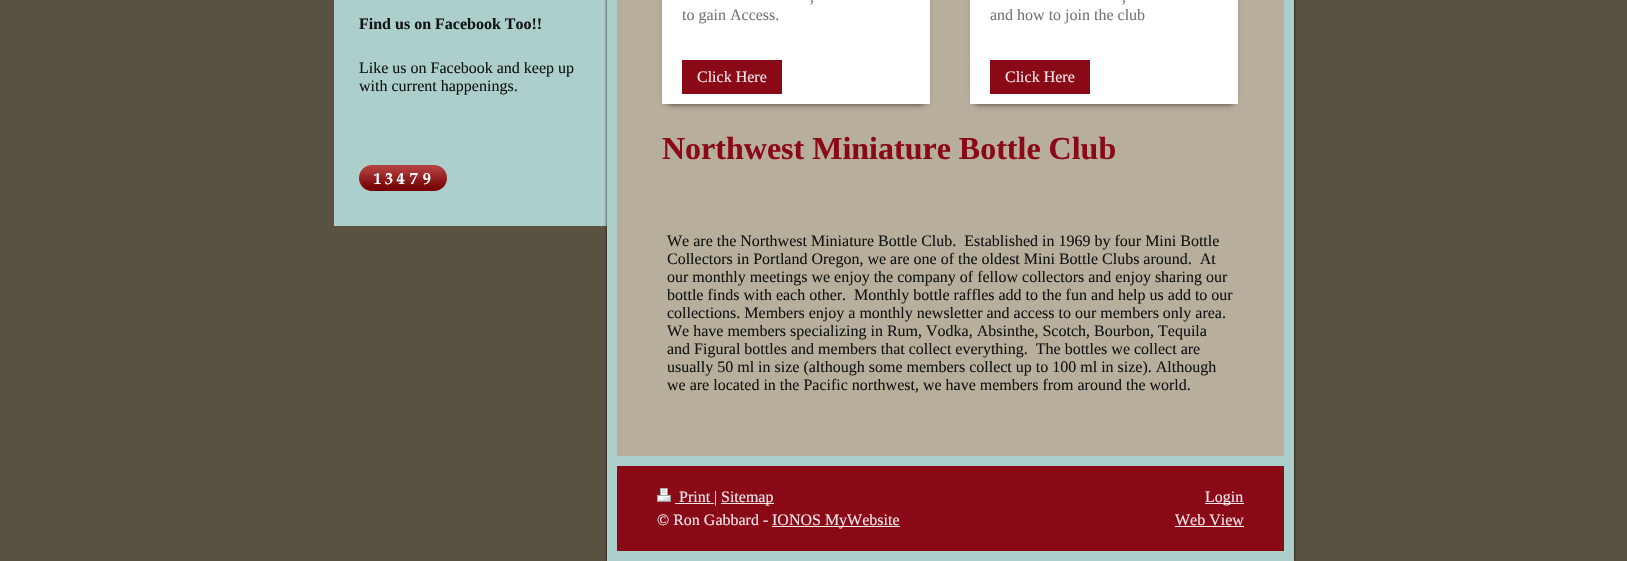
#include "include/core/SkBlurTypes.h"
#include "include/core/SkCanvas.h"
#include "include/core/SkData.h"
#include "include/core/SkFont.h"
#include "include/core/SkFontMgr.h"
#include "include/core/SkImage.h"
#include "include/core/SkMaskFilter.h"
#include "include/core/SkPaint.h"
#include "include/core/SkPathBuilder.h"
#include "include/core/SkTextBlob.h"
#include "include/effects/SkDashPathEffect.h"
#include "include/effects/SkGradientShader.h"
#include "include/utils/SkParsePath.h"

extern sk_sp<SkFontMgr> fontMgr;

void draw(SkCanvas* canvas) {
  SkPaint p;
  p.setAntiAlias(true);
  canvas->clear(SkColorSetRGB(89, 82, 65));
  p.setColor(SkColorSetRGB(172, 207, 204));
  canvas->drawRect(SkRect::MakeLTRB(334, 0, 607, 226), p);
  canvas->drawImageRect(SkImages::DeferredFromEncodedData(SkData::MakeFromFileName("images/1.png")), SkRect::MakeLTRB(359, 165, 373, 191), SkSamplingOptions());
  canvas->drawImageRect(SkImages::DeferredFromEncodedData(SkData::MakeFromFileName("images/2.png")), SkRect::MakeLTRB(373, 165, 383, 191), SkSamplingOptions());
  canvas->drawImageRect(SkImages::DeferredFromEncodedData(SkData::MakeFromFileName("images/3.png")), SkRect::MakeLTRB(383, 165, 395, 191), SkSamplingOptions());
  canvas->drawImageRect(SkImages::DeferredFromEncodedData(SkData::MakeFromFileName("images/4.png")), SkRect::MakeLTRB(395, 165, 408, 191), SkSamplingOptions());
  canvas->drawImageRect(SkImages::DeferredFromEncodedData(SkData::MakeFromFileName("images/5.png")), SkRect::MakeLTRB(408, 165, 421, 191), SkSamplingOptions());
  canvas->drawImageRect(SkImages::DeferredFromEncodedData(SkData::MakeFromFileName("images/6.png")), SkRect::MakeLTRB(421, 165, 434, 191), SkSamplingOptions());
  canvas->drawImageRect(SkImages::DeferredFromEncodedData(SkData::MakeFromFileName("images/7.png")), SkRect::MakeLTRB(434, 165, 447, 191), SkSamplingOptions());
  p.setColor(SkColorSetRGB(18, 17, 16));
  p.setMaskFilter(SkMaskFilter::MakeBlur(kNormal_SkBlurStyle, 1.5f));
  canvas->drawRect(SkRect::MakeLTRB(607, -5, 1294, 561), p);
  p.setMaskFilter(nullptr);
  p.setColor(SkColorSetRGB(184, 174, 156));
  canvas->drawRect(SkRect::MakeLTRB(617, 0, 1284, 456), p);
  p.setColor(SkColorSetRGB(172, 207, 204));
  canvas->drawRect(SkRect::MakeLTRB(1284, 0, 1294, 456), p);
  canvas->drawRect(SkRect::MakeLTRB(617, 456, 1294, 466), p);
  canvas->drawRect(SkRect::MakeLTRB(607, 0, 617, 561), p);
  p.setColor(SkColorSetRGB(18, 17, 16));
  p.setMaskFilter(SkMaskFilter::MakeBlur(kNormal_SkBlurStyle, 3.5f));
  canvas->drawRect(SkRect::MakeLTRB(667, -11, 925, 103), p);
  p.setMaskFilter(nullptr);
  p.setColor(SK_ColorWHITE);
  canvas->drawRect(SkRect::MakeLTRB(662, 0, 930, 104), p);
  p.setColor(SkColorSetRGB(138, 9, 23));
  canvas->drawRect(SkRect::MakeLTRB(682, 60, 782, 94), p);
  p.setColor(SkColorSetRGB(18, 17, 16));
  p.setMaskFilter(SkMaskFilter::MakeBlur(kNormal_SkBlurStyle, 3.5f));
  canvas->drawRect(SkRect::MakeLTRB(975, -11, 1233, 103), p);
  p.setMaskFilter(nullptr);
  p.setColor(SK_ColorWHITE);
  canvas->drawRect(SkRect::MakeLTRB(970, 0, 1238, 104), p);
  p.setColor(SkColorSetRGB(138, 9, 23));
  canvas->drawRect(SkRect::MakeLTRB(990, 60, 1090, 94), p);
  canvas->drawRect(SkRect::MakeLTRB(617, 466, 1284, 551), p);
  p.setColor(SkColorSetRGB(172, 207, 204));
  canvas->drawRect(SkRect::MakeLTRB(1284, 466, 1294, 551), p);
  canvas->drawRect(SkRect::MakeLTRB(617, 551, 1294, 561), p);
  canvas->drawImageRect(SkImages::DeferredFromEncodedData(SkData::MakeFromFileName("images/8.png")), SkRect::MakeLTRB(657, 488, 671, 502), SkSamplingOptions());
  p.setColor(SkColorSetRGB(243, 230, 232));
  canvas->drawRect(SkRect::MakeLTRB(675, 503, 714, 504), p);
  canvas->drawRect(SkRect::MakeLTRB(721, 503, 774, 504), p);
  canvas->drawRect(SkRect::MakeLTRB(772, 526, 900, 527), p);
  canvas->drawRect(SkRect::MakeLTRB(1205, 503, 1244, 504), p);
  canvas->drawRect(SkRect::MakeLTRB(1175, 526, 1244, 527), p);
  SkFont font1(fontMgr->matchFamilyStyle("Liberation Serif", SkFontStyle::Bold()), 16);
  font1.setSubpixel(true);
  p.setColor(SkColorSetRGB(17, 21, 20));
  canvas->drawString("Find us on Facebook Too!!", 359, 29, font1, p);
  SkFont font2(fontMgr->matchFamilyStyle("Liberation Serif", SkFontStyle::Normal()), 16);
  font2.setSubpixel(true);
  canvas->drawString("Like us on Facebook and keep up", 359, 73, font2, p);
  canvas->drawString("with current happenings.", 359, 91, font2, p);
  p.setColor(SkColorSetRGB(117, 117, 117));
  canvas->drawString(",", 810, 2, font2, p);
  canvas->drawString("to gain Access.", 682, 20, font2, p);
  p.setColor(SkColorSetRGB(243, 230, 232));
  canvas->drawString("Click Here", 697, 82, font2, p);
  p.setColor(SkColorSetRGB(117, 117, 117));
  canvas->drawString(",", 1122, 2, font2, p);
  canvas->drawString("and how to join the club", 990, 20, font2, p);
  p.setColor(SkColorSetRGB(243, 230, 232));
  canvas->drawString("Click Here", 1005, 82, font2, p);
  SkFont font3(fontMgr->matchFamilyStyle("Liberation Serif", SkFontStyle::Bold()), 32);
  font3.setSubpixel(true);
  p.setColor(SkColorSetRGB(138, 9, 23));
  canvas->drawString("Northwest Miniature Bottle Club", 662, 159, font3, p);
  p.setColor(SkColorSetRGB(17, 21, 20));
  canvas->drawString("We are the Northwest Miniature Bottle Club.  Established in 1969 by four Mini Bottle", 667, 246, font2, p);
  canvas->drawString("Collectors in Portland Oregon, we are one of the oldest Mini Bottle Clubs around.  At", 667, 264, font2, p);
  canvas->drawString("our monthly meetings we enjoy the company of fellow collectors and enjoy sharing our", 667, 282, font2, p);
  canvas->drawString("bottle finds with each other.  Monthly bottle raffles add to the fun and help us add to our", 667, 300, font2, p);
  canvas->drawString("collections. Members enjoy a monthly newsletter and access to our members only area.", 667, 318, font2, p);
  canvas->drawString("We have members specializing in Rum, Vodka, Absinthe, Scotch, Bourbon, Tequila", 667, 336, font2, p);
  canvas->drawString("and Figural bottles and members that collect everything.  The bottles we collect are", 667, 354, font2, p);
  canvas->drawString("usually 50 ml in size (although some members collect up to 100 ml in size). Although", 667, 372, font2, p);
  canvas->drawString("we are located in the Pacific northwest, we have members from around the world.", 667, 390, font2, p);
  p.setColor(SkColorSetRGB(243, 230, 232));
  canvas->drawString("Print |", 679, 502, font2, p);
  canvas->drawString("Sitemap", 721, 502, font2, p);
  canvas->drawString("© Ron Gabbard -", 657, 525, font2, p);
  canvas->drawString("IONOS MyWebsite", 772, 525, font2, p);
  canvas->drawString("Login", 1205, 502, font2, p);
  canvas->drawString("Web View", 1175, 525, font2, p);
}
